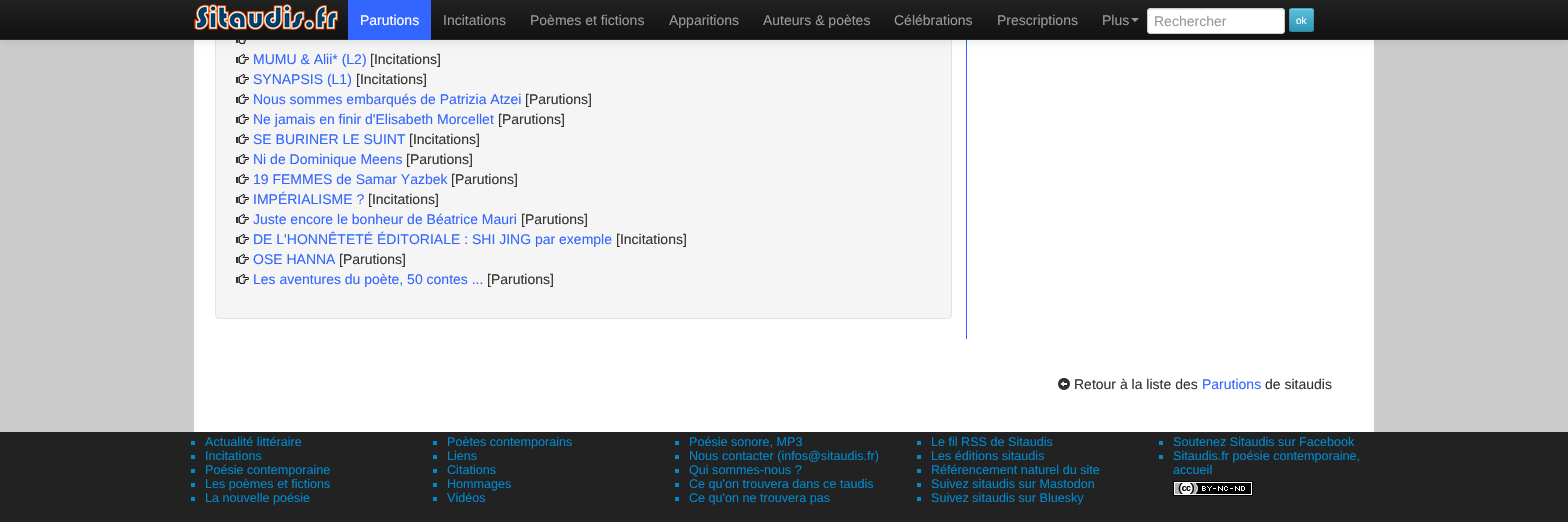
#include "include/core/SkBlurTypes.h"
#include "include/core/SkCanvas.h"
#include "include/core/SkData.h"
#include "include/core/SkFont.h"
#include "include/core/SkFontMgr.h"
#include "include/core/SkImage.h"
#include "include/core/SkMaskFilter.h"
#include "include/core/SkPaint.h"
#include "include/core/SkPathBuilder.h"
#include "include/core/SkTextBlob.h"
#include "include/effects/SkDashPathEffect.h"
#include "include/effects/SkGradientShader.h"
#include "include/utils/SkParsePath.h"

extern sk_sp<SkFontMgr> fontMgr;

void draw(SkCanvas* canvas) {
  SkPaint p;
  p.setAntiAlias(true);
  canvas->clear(SkColorSetRGB(204, 204, 204));
  p.setColor(SK_ColorWHITE);
  canvas->drawRect(SkRect::MakeLTRB(194, 40, 1374, 432), p);
  p.setColor(SkColorSetRGB(51, 102, 255));
  canvas->drawRect(SkRect::MakeLTRB(966, 40, 967, 339), p);
  p.setColor(SkColorSetRGB(245, 245, 245));
  canvas->drawRoundRect(SkRect::MakeLTRB(215.5f, -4.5f, 951.5f, 318.5f), 3.5f, 3.5f, p);
  p.setStyle(SkPaint::kStroke_Style);
  p.setStrokeWidth(1);
  p.setColor(SkColorSetRGB(227, 227, 227));
  canvas->drawRoundRect(SkRect::MakeLTRB(215.5f, -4.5f, 951.5f, 318.5f), 3.5f, 3.5f, p);
  canvas->drawImageRect(SkImages::DeferredFromEncodedData(SkData::MakeFromFileName("images/2.png")), SkRect::MakeLTRB(236, 40, 249, 44), SkSamplingOptions());
  canvas->drawImageRect(SkImages::DeferredFromEncodedData(SkData::MakeFromFileName("images/3.png")), SkRect::MakeLTRB(236, 54, 249, 64), SkSamplingOptions());
  p.setStyle(SkPaint::kFill_Style);
  p.setColor(SkColorSetARGB(26, 0, 0, 0));
  p.setMaskFilter(SkMaskFilter::MakeBlur(kNormal_SkBlurStyle, 5));
  canvas->drawRect(SkRect::MakeLTRB(0, 1, 1568, 41), p);
  p.setMaskFilter(nullptr);
  {
    const SkColor colors[] = {SkColorSetRGB(34, 34, 34), SkColorSetRGB(17, 17, 17)};
    const float stops[] = {0, 1};
    const SkPoint ends[] = {{784, 0}, {784, 39}};
    p.setShader(SkGradientShader::MakeLinear(ends, colors, stops, 2, SkTileMode::kClamp));
    p.setAlpha(255);
  }
  canvas->drawRect(SkRect::MakeLTRB(0, 0, 1568, 39), p);
  p.setShader(nullptr);
  p.setColor(SkColorSetRGB(37, 37, 37));
  canvas->drawRect(SkRect::MakeLTRB(0, 39, 1568, 40), p);
  canvas->drawImageRect(SkImages::DeferredFromEncodedData(SkData::MakeFromFileName("images/1.png")), SkRect::MakeLTRB(194, 4, 338, 30), SkSamplingOptions());
  p.setColor(SkColorSetRGB(51, 102, 255));
  canvas->drawRect(SkRect::MakeLTRB(348, 0, 431, 40), p);
  p.setColor(SkColorSetRGB(153, 153, 153));
  canvas->drawPath(SkPathBuilder().moveTo(1131, 18).lineTo(1139, 18).lineTo(1135, 22).close().detach(), p);
  p.setColor(SK_ColorWHITE);
  canvas->drawRoundRect(SkRect::MakeLTRB(1147, 8, 1285, 34), 4, 4, p);
  p.setColor(SkColorSetRGB(236, 236, 236));
  canvas->drawPath(SkPathBuilder().moveTo(1151, 10).lineTo(1281, 10).cubicTo(1283, 10, 1284, 11, 1284, 13).cubicTo(1284, 11, 1284, 9, 1282, 9).lineTo(1150, 9).cubicTo(1148, 9, 1148, 11, 1148, 13).cubicTo(1148, 11, 1149, 10, 1151, 10).close().detach(), p);
  p.setStyle(SkPaint::kStroke_Style);
  p.setColor(SkColorSetRGB(204, 204, 204));
  canvas->drawRoundRect(SkRect::MakeLTRB(1147.5f, 8.5f, 1284.5f, 33.5f), 3.5f, 3.5f, p);
  p.setStyle(SkPaint::kFill_Style);
  p.setColor(SkColorSetRGB(73, 175, 205));
  canvas->drawRoundRect(SkRect::MakeLTRB(1289, 8, 1314, 32), 3, 3, p);
  canvas->save();
  canvas->clipPath(SkPathBuilder().moveTo(1292, 8).lineTo(1311, 8).cubicTo(1312.5f, 8, 1314, 9.5f, 1314, 11).lineTo(1314, 29).cubicTo(1314, 30.5f, 1312.5f, 32, 1311, 32).lineTo(1292, 32).cubicTo(1290.5f, 32, 1289, 30.5f, 1289, 29).lineTo(1289, 11).cubicTo(1289, 9.5f, 1290.5f, 8, 1292, 8).close().detach(), true);
  {
    const SkColor colors[] = {SkColorSetRGB(91, 192, 222), SkColorSetRGB(47, 150, 180)};
    const float stops[] = {0, 1};
    const SkPoint ends[] = {{1302, 9}, {1302, 31}};
    p.setShader(SkGradientShader::MakeLinear(ends, colors, stops, 2, SkTileMode::kClamp));
    p.setAlpha(255);
  }
  canvas->drawRect(SkRect::MakeLTRB(1289, 9, 1314, 31), p);
  canvas->restore();
  p.setShader(nullptr);
  p.setColor(SkColorSetRGB(123, 204, 228));
  canvas->drawPath(SkPathBuilder().moveTo(1292, 10).lineTo(1311, 10).cubicTo(1312, 10, 1313, 11, 1313, 12).cubicTo(1313, 8.5f, 1311, 9, 1308, 9).lineTo(1295, 9).cubicTo(1292, 9, 1290, 8.5f, 1290, 12).cubicTo(1290, 11, 1291, 10, 1292, 10).close().detach(), p);
  p.setStyle(SkPaint::kStroke_Style);
  p.setColor(SkColorSetARGB(64, 0, 0, 0));
  canvas->drawPath(SkPathBuilder().moveTo(1313, 31).cubicTo(1312.5f, 31, 1311.5f, 31.5f, 1311, 31.5f).lineTo(1292, 31.5f).cubicTo(1291.5f, 31.5f, 1290.5f, 31, 1290, 31).detach(), p);
  p.setColor(SkColorSetARGB(26, 0, 0, 0));
  canvas->drawPath(SkPathBuilder().moveTo(1290, 31).cubicTo(1289, 29.5f, 1289.5f, 27.5f, 1289.5f, 26).lineTo(1289.5f, 20).cubicTo(1289.5f, 6.5f, 1287.5f, 8.5f, 1301.5f, 8.5f).cubicTo(1315.5f, 8.5f, 1313.5f, 6.5f, 1313.5f, 20).lineTo(1313.5f, 26).cubicTo(1313.5f, 27.5f, 1314, 29.5f, 1313, 31).detach(), p);
  canvas->drawImageRect(SkImages::DeferredFromEncodedData(SkData::MakeFromFileName("images/3.png")), SkRect::MakeLTRB(236, 74, 249, 84), SkSamplingOptions());
  canvas->drawImageRect(SkImages::DeferredFromEncodedData(SkData::MakeFromFileName("images/3.png")), SkRect::MakeLTRB(236, 94, 249, 104), SkSamplingOptions());
  canvas->drawImageRect(SkImages::DeferredFromEncodedData(SkData::MakeFromFileName("images/3.png")), SkRect::MakeLTRB(236, 114, 249, 124), SkSamplingOptions());
  canvas->drawImageRect(SkImages::DeferredFromEncodedData(SkData::MakeFromFileName("images/3.png")), SkRect::MakeLTRB(236, 134, 249, 144), SkSamplingOptions());
  canvas->drawImageRect(SkImages::DeferredFromEncodedData(SkData::MakeFromFileName("images/3.png")), SkRect::MakeLTRB(236, 154, 249, 164), SkSamplingOptions());
  canvas->drawImageRect(SkImages::DeferredFromEncodedData(SkData::MakeFromFileName("images/3.png")), SkRect::MakeLTRB(236, 174, 249, 184), SkSamplingOptions());
  canvas->drawImageRect(SkImages::DeferredFromEncodedData(SkData::MakeFromFileName("images/3.png")), SkRect::MakeLTRB(236, 194, 249, 204), SkSamplingOptions());
  canvas->drawImageRect(SkImages::DeferredFromEncodedData(SkData::MakeFromFileName("images/3.png")), SkRect::MakeLTRB(236, 214, 249, 224), SkSamplingOptions());
  canvas->drawImageRect(SkImages::DeferredFromEncodedData(SkData::MakeFromFileName("images/3.png")), SkRect::MakeLTRB(236, 234, 249, 244), SkSamplingOptions());
  canvas->drawImageRect(SkImages::DeferredFromEncodedData(SkData::MakeFromFileName("images/3.png")), SkRect::MakeLTRB(236, 254, 249, 264), SkSamplingOptions());
  canvas->drawImageRect(SkImages::DeferredFromEncodedData(SkData::MakeFromFileName("images/3.png")), SkRect::MakeLTRB(236, 274, 249, 284), SkSamplingOptions());
  canvas->drawImageRect(SkImages::DeferredFromEncodedData(SkData::MakeFromFileName("images/4.png")), SkRect::MakeLTRB(1058, 378, 1070, 390), SkSamplingOptions());
  p.setStyle(SkPaint::kFill_Style);
  p.setColor(SkColorSetRGB(34, 34, 34));
  canvas->drawRect(SkRect::MakeLTRB(0, 432, 1568, 522), p);
  p.setColor(SkColorSetRGB(0, 136, 204));
  canvas->drawRect(SkRect::MakeLTRB(191, 441, 195, 445), p);
  canvas->drawRect(SkRect::MakeLTRB(433, 441, 437, 445), p);
  canvas->drawRect(SkRect::MakeLTRB(675, 441, 679, 445), p);
  canvas->drawRect(SkRect::MakeLTRB(917, 441, 921, 445), p);
  canvas->drawRect(SkRect::MakeLTRB(1159, 441, 1163, 445), p);
  canvas->drawRect(SkRect::MakeLTRB(191, 455, 195, 459), p);
  canvas->drawRect(SkRect::MakeLTRB(433, 455, 437, 459), p);
  canvas->drawRect(SkRect::MakeLTRB(675, 455, 679, 459), p);
  canvas->drawRect(SkRect::MakeLTRB(917, 455, 921, 459), p);
  canvas->drawRect(SkRect::MakeLTRB(1159, 455, 1163, 459), p);
  canvas->drawRect(SkRect::MakeLTRB(191, 469, 195, 473), p);
  canvas->drawRect(SkRect::MakeLTRB(433, 469, 437, 473), p);
  canvas->drawRect(SkRect::MakeLTRB(675, 469, 679, 473), p);
  canvas->drawRect(SkRect::MakeLTRB(917, 469, 921, 473), p);
  canvas->drawRect(SkRect::MakeLTRB(191, 483, 195, 487), p);
  canvas->drawRect(SkRect::MakeLTRB(433, 483, 437, 487), p);
  canvas->drawRect(SkRect::MakeLTRB(675, 483, 679, 487), p);
  canvas->drawRect(SkRect::MakeLTRB(917, 483, 921, 487), p);
  canvas->drawImageRect(SkImages::DeferredFromEncodedData(SkData::MakeFromFileName("images/5.png")), SkRect::MakeLTRB(1173, 481, 1253, 496), SkSamplingOptions());
  canvas->drawRect(SkRect::MakeLTRB(191, 497, 195, 501), p);
  canvas->drawRect(SkRect::MakeLTRB(433, 497, 437, 501), p);
  canvas->drawRect(SkRect::MakeLTRB(675, 497, 679, 501), p);
  canvas->drawRect(SkRect::MakeLTRB(917, 497, 921, 501), p);
  SkFont font1(fontMgr->matchFamilyStyle("Liberation Sans", SkFontStyle::Normal()), 14);
  font1.setSubpixel(true);
  p.setColor(SK_ColorWHITE);
  canvas->drawString("Parutions", 360, 25, font1, p);
  p.setColor(SkColorSetRGB(153, 153, 153));
  canvas->drawString("Incitations", 443, 25, font1, p);
  canvas->drawString("Poèmes et fictions", 530, 25, font1, p);
  canvas->drawString("Apparitions", 669, 25, font1, p);
  canvas->drawString("Auteurs & poètes", 763, 25, font1, p);
  canvas->drawString("Célébrations", 894, 25, font1, p);
  canvas->drawString("Prescriptions", 997, 25, font1, p);
  canvas->drawString("Plus", 1102, 25, font1, p);
  canvas->drawString("Rechercher", 1154, 26, font1, p);
  SkFont font2(fontMgr->matchFamilyStyle("Liberation Sans", SkFontStyle::Normal()), 10);
  font2.setSubpixel(true);
  p.setColor(SK_ColorWHITE);
  canvas->drawString("ok", 1296, 24, font2, p);
  p.setColor(SkColorSetRGB(51, 102, 255));
  canvas->drawString("MUMU & Alii* (L2)", 253, 64, font1, p);
  p.setColor(SkColorSetRGB(51, 51, 51));
  canvas->drawString("[Incitations]", 370, 64, font1, p);
  p.setColor(SkColorSetRGB(51, 102, 255));
  canvas->drawString("SYNAPSIS (L1)", 253, 84, font1, p);
  p.setColor(SkColorSetRGB(51, 51, 51));
  canvas->drawString("[Incitations]", 356, 84, font1, p);
  p.setColor(SkColorSetRGB(51, 102, 255));
  canvas->drawString("Nous sommes embarqués de Patrizia Atzei", 253, 104, font1, p);
  p.setColor(SkColorSetRGB(51, 51, 51));
  canvas->drawString("[Parutions]", 525, 104, font1, p);
  p.setColor(SkColorSetRGB(51, 102, 255));
  canvas->drawString("Ne jamais en finir d'Elisabeth Morcellet", 253, 124, font1, p);
  p.setColor(SkColorSetRGB(51, 51, 51));
  canvas->drawString("[Parutions]", 498, 124, font1, p);
  p.setColor(SkColorSetRGB(51, 102, 255));
  canvas->drawString("SE BURINER LE SUINT", 253, 144, font1, p);
  p.setColor(SkColorSetRGB(51, 51, 51));
  canvas->drawString("[Incitations]", 409, 144, font1, p);
  p.setColor(SkColorSetRGB(51, 102, 255));
  canvas->drawString("Ni de Dominique Meens", 253, 164, font1, p);
  p.setColor(SkColorSetRGB(51, 51, 51));
  canvas->drawString("[Parutions]", 406, 164, font1, p);
  p.setColor(SkColorSetRGB(51, 102, 255));
  canvas->drawString("19 FEMMES de Samar Yazbek", 253, 184, font1, p);
  p.setColor(SkColorSetRGB(51, 51, 51));
  canvas->drawString("[Parutions]", 451, 184, font1, p);
  p.setColor(SkColorSetRGB(51, 102, 255));
  canvas->drawString("IMPÉRIALISME ?", 253, 204, font1, p);
  p.setColor(SkColorSetRGB(51, 51, 51));
  canvas->drawString("[Incitations]", 368, 204, font1, p);
  p.setColor(SkColorSetRGB(51, 102, 255));
  canvas->drawString("Juste encore le bonheur de Béatrice Mauri", 253, 224, font1, p);
  p.setColor(SkColorSetRGB(51, 51, 51));
  canvas->drawString("[Parutions]", 521, 224, font1, p);
  p.setColor(SkColorSetRGB(51, 102, 255));
  canvas->drawString("DE L'HONNÊTETÉ ÉDITORIALE : SHI JING par exemple", 253, 244, font1, p);
  p.setColor(SkColorSetRGB(51, 51, 51));
  canvas->drawString("[Incitations]", 616, 244, font1, p);
  p.setColor(SkColorSetRGB(51, 102, 255));
  canvas->drawString("OSE HANNA", 253, 264, font1, p);
  p.setColor(SkColorSetRGB(51, 51, 51));
  canvas->drawString("[Parutions]", 339, 264, font1, p);
  p.setColor(SkColorSetRGB(51, 102, 255));
  canvas->drawString("Les aventures du poète, 50 contes ...", 253, 284, font1, p);
  p.setColor(SkColorSetRGB(51, 51, 51));
  canvas->drawString("[Parutions]", 487, 284, font1, p);
  canvas->drawString("Retour à la liste des", 1074, 389, font1, p);
  p.setColor(SkColorSetRGB(51, 102, 255));
  canvas->drawString("Parutions", 1202, 389, font1, p);
  p.setColor(SkColorSetRGB(51, 51, 51));
  canvas->drawString("de sitaudis", 1265, 389, font1, p);
  SkFont font3(fontMgr->matchFamilyStyle("Liberation Sans", SkFontStyle::Normal()), 12.6f);
  font3.setSubpixel(true);
  p.setColor(SkColorSetRGB(0, 136, 204));
  canvas->drawString("Actualité littéraire", 205, 446, font3, p);
  canvas->drawString("Poètes contemporains", 447, 446, font3, p);
  canvas->drawString("Poésie sonore, MP3", 689, 446, font3, p);
  canvas->drawString("Le fil RSS de Sitaudis", 931, 446, font3, p);
  canvas->drawString("Soutenez Sitaudis sur Facebook", 1173, 446, font3, p);
  canvas->drawString("Incitations", 205, 460, font3, p);
  canvas->drawString("Liens", 447, 460, font3, p);
  canvas->drawString("Nous contacter (infos@sitaudis.fr)", 689, 460, font3, p);
  canvas->drawString("Les éditions sitaudis", 931, 460, font3, p);
  canvas->drawString("Sitaudis.fr poésie contemporaine,", 1173, 460, font3, p);
  canvas->drawString("accueil", 1173, 474, font3, p);
  canvas->drawString("Poésie contemporaine", 205, 474, font3, p);
  canvas->drawString("Citations", 447, 474, font3, p);
  canvas->drawString("Qui sommes-nous ?", 689, 474, font3, p);
  canvas->drawString("Référencement naturel du site", 931, 474, font3, p);
  canvas->drawString("Les poèmes et fictions", 205, 488, font3, p);
  canvas->drawString("Hommages", 447, 488, font3, p);
  canvas->drawString("Ce qu'on trouvera dans ce taudis", 689, 488, font3, p);
  canvas->drawString("Suivez sitaudis sur Mastodon", 931, 488, font3, p);
  canvas->drawString("La nouvelle poésie", 205, 502, font3, p);
  canvas->drawString("Vidéos", 447, 502, font3, p);
  canvas->drawString("Ce qu'on ne trouvera pas", 689, 502, font3, p);
  canvas->drawString("Suivez sitaudis sur Bluesky", 931, 502, font3, p);
}
